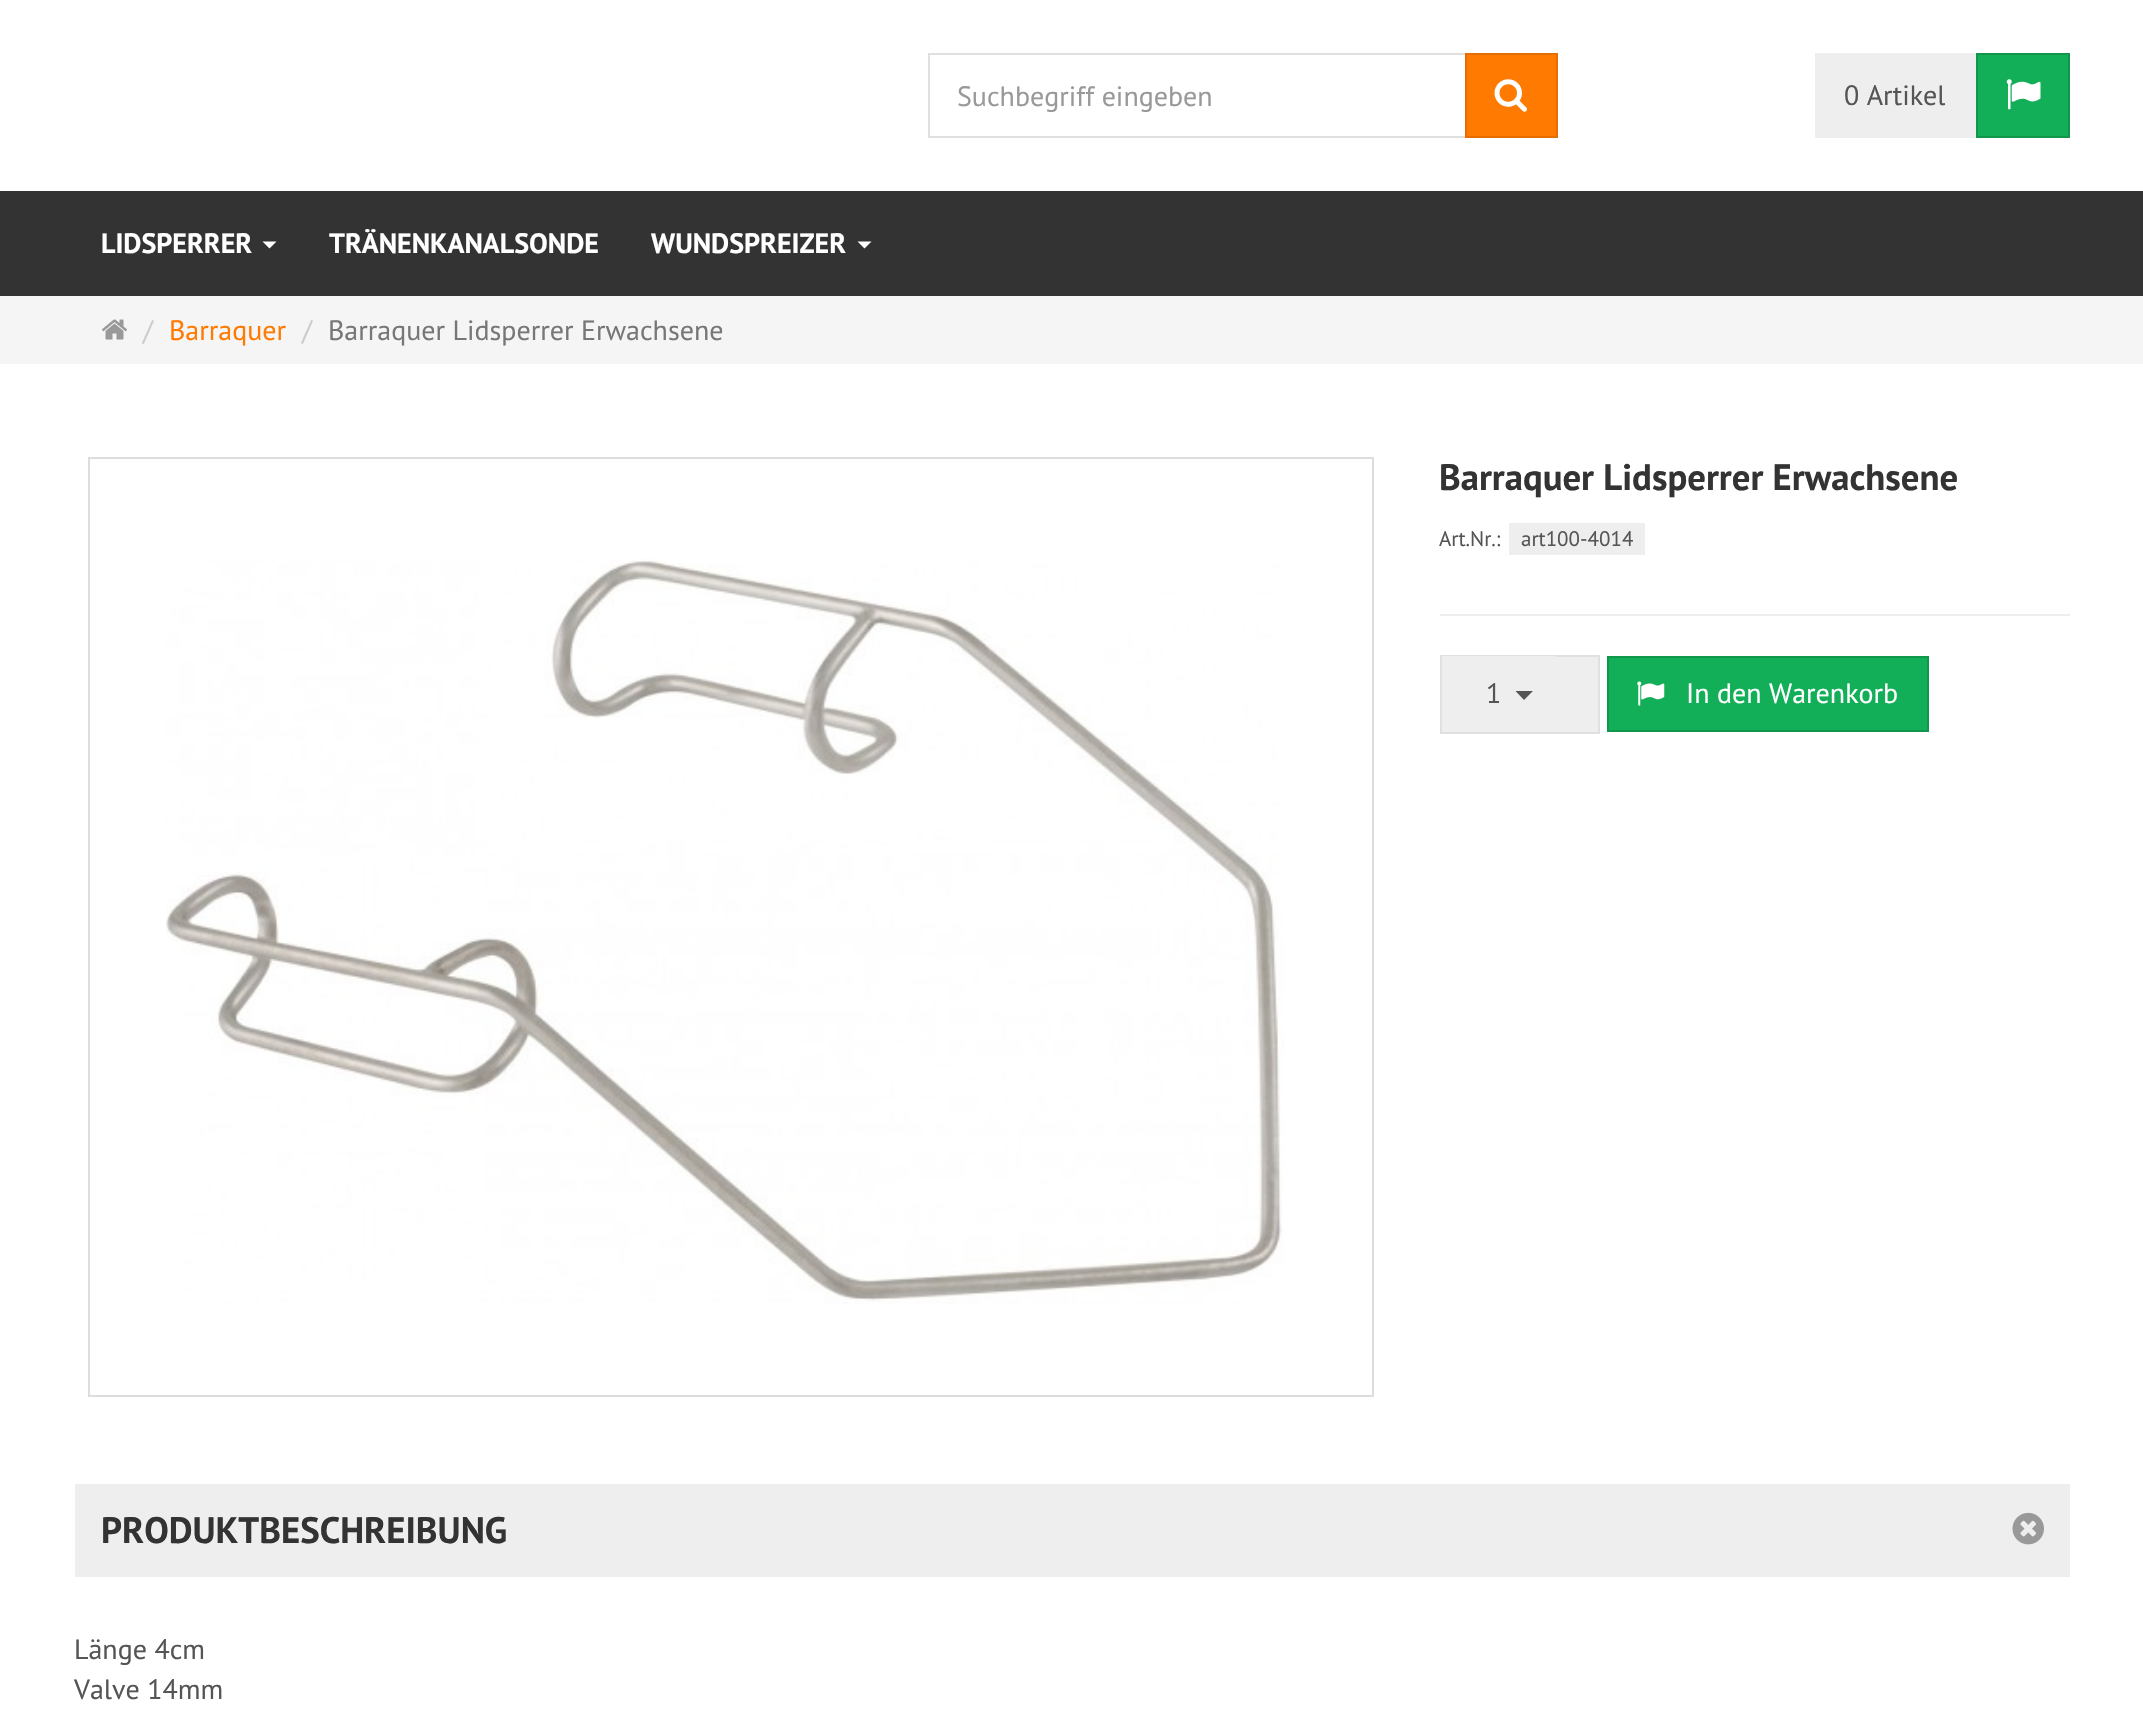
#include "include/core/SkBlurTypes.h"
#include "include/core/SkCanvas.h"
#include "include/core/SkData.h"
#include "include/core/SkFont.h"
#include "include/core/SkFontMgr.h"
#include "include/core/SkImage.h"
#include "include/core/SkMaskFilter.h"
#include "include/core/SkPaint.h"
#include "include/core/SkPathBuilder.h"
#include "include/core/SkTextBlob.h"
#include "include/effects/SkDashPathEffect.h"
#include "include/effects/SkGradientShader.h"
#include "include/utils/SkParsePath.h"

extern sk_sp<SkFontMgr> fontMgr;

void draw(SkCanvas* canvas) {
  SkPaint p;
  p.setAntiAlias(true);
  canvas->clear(SK_ColorWHITE);
  p.setStyle(SkPaint::kStroke_Style);
  p.setStrokeWidth(2);
  p.setColor(SkColorSetRGB(224, 224, 224));
  canvas->drawRect(SkRect::MakeLTRB(929, 54, 1466, 137), p);
  p.setStyle(SkPaint::kFill_Style);
  p.setColor(SkColorSetRGB(255, 122, 0));
  canvas->drawRect(SkRect::MakeLTRB(1466, 54, 1557, 137), p);
  p.setStyle(SkPaint::kStroke_Style);
  p.setColor(SkColorSetRGB(230, 110, 0));
  canvas->drawRect(SkRect::MakeLTRB(1466, 54, 1557, 137), p);
  canvas->drawImageRect(SkImages::DeferredFromEncodedData(SkData::MakeFromFileName("images/1.png")), SkRect::MakeLTRB(1494, 79, 1527, 112), SkSamplingOptions());
  p.setStyle(SkPaint::kFill_Style);
  p.setColor(SkColorSetRGB(238, 238, 238));
  canvas->drawRect(SkRect::MakeLTRB(1815, 53, 1976, 138), p);
  p.setColor(SkColorSetRGB(19, 174, 88));
  canvas->drawRect(SkRect::MakeLTRB(1977, 54, 2069, 137), p);
  p.setStyle(SkPaint::kStroke_Style);
  p.setColor(SkColorSetRGB(16, 151, 76));
  canvas->drawRect(SkRect::MakeLTRB(1977, 54, 2069, 137), p);
  canvas->drawImageRect(SkImages::DeferredFromEncodedData(SkData::MakeFromFileName("images/2.png")), SkRect::MakeLTRB(2006, 79, 2041, 110), SkSamplingOptions());
  p.setStyle(SkPaint::kFill_Style);
  p.setColor(SkColorSetRGB(51, 51, 51));
  canvas->drawRect(SkRect::MakeLTRB(0, 191, 2143, 296), p);
  p.setColor(SK_ColorWHITE);
  canvas->drawPath(SkPathBuilder().moveTo(262.5f, 241.5f).lineTo(276.5f, 241.5f).lineTo(269.5f, 248.5f).close().detach(), p);
  canvas->drawPath(SkPathBuilder().moveTo(857.5f, 241.5f).lineTo(871.5f, 241.5f).lineTo(864.5f, 248.5f).close().detach(), p);
  p.setColor(SkColorSetRGB(245, 245, 245));
  canvas->drawRect(SkRect::MakeLTRB(0, 296, 2143, 364), p);
  canvas->drawImageRect(SkImages::DeferredFromEncodedData(SkData::MakeFromFileName("images/3.png")), SkRect::MakeLTRB(102, 319, 127, 340), SkSamplingOptions());
  p.setStyle(SkPaint::kStroke_Style);
  p.setColor(SkColorSetRGB(221, 221, 221));
  canvas->drawRect(SkRect::MakeLTRB(89, 458, 1373, 1396), p);
  canvas->drawImageRect(SkImages::DeferredFromEncodedData(SkData::MakeFromFileName("images/4.png")), SkRect::MakeLTRB(166, 558, 1284, 1304), SkSamplingOptions());
  p.setStyle(SkPaint::kFill_Style);
  p.setColor(SkColorSetRGB(238, 238, 238));
  canvas->drawRect(SkRect::MakeLTRB(1509, 523, 1645, 555), p);
  canvas->drawRect(SkRect::MakeLTRB(1440, 614, 2070, 616), p);
  canvas->drawRect(SkRect::MakeLTRB(1556, 657, 1598, 732), p);
  p.setColor(SkColorSetRGB(224, 224, 224));
  canvas->drawRect(SkRect::MakeLTRB(1556, 655, 1600, 657), p);
  canvas->drawRect(SkRect::MakeLTRB(1598, 655, 1600, 733), p);
  canvas->drawRect(SkRect::MakeLTRB(1440, 732, 1600, 734), p);
  canvas->drawRect(SkRect::MakeLTRB(1440, 655, 1556, 656), p);
  canvas->drawRect(SkRect::MakeLTRB(1440, 655, 1442, 733), p);
  p.setColor(SkColorSetRGB(238, 238, 238));
  canvas->drawRect(SkRect::MakeLTRB(1442, 656, 1556, 732), p);
  p.setColor(SkColorSetRGB(85, 85, 85));
  canvas->drawPath(SkPathBuilder().moveTo(1515.5f, 691).lineTo(1533, 691).lineTo(1524, 700).close().detach(), p);
  p.setColor(SkColorSetRGB(19, 174, 88));
  canvas->drawRect(SkRect::MakeLTRB(1608, 657, 1928, 731), p);
  p.setStyle(SkPaint::kStroke_Style);
  p.setColor(SkColorSetRGB(16, 151, 76));
  canvas->drawRect(SkRect::MakeLTRB(1608, 657, 1928, 731), p);
  canvas->drawImageRect(SkImages::DeferredFromEncodedData(SkData::MakeFromFileName("images/5.png")), SkRect::MakeLTRB(1637, 681, 1665, 706), SkSamplingOptions());
  p.setStyle(SkPaint::kFill_Style);
  p.setColor(SkColorSetRGB(238, 238, 238));
  canvas->drawRect(SkRect::MakeLTRB(75, 1484, 2070, 1577), p);
  canvas->drawImageRect(SkImages::DeferredFromEncodedData(SkData::MakeFromFileName("images/6.png")), SkRect::MakeLTRB(2012, 1512, 2044, 1545), SkSamplingOptions());
  SkFont font1(fontMgr->matchFamilyStyle("PT Sans", SkFontStyle::Normal()), 28);
  font1.setSubpixel(true);
  p.setColor(SkColorSetRGB(153, 153, 153));
  canvas->drawString("Suchbegriff eingeben", 957, 106, font1, p);
  p.setColor(SkColorSetRGB(85, 85, 85));
  canvas->drawString("0 Artikel", 1844, 105, font1, p);
  SkFont font2(fontMgr->matchFamilyStyle("PT Sans", SkFontStyle::Bold()), 28);
  font2.setSubpixel(true);
  p.setColor(SK_ColorWHITE);
  canvas->drawString("LIDSPERRER", 101, 253, font2, p);
  canvas->drawString("TRÄNENKANALSONDE", 329, 253, font2, p);
  canvas->drawString("WUNDSPREIZER", 651, 253, font2, p);
  p.setColor(SkColorSetRGB(204, 204, 204));
  canvas->drawString("/", 143, 340, font1, p);
  p.setColor(SkColorSetRGB(255, 122, 0));
  canvas->drawString("Barraquer", 169, 340, font1, p);
  p.setColor(SkColorSetRGB(204, 204, 204));
  canvas->drawString("/", 302, 340, font1, p);
  p.setColor(SkColorSetRGB(119, 119, 119));
  canvas->drawString("Barraquer Lidsperrer Erwachsene", 328, 340, font1, p);
  SkFont font3(fontMgr->matchFamilyStyle("PT Sans", SkFontStyle::Bold()), 36.75f);
  font3.setSubpixel(true);
  p.setColor(SkColorSetRGB(51, 51, 51));
  canvas->drawString("Barraquer Lidsperrer Erwachsene", 1439, 490, font3, p);
  SkFont font4(fontMgr->matchFamilyStyle("PT Sans", SkFontStyle::Normal()), 21);
  font4.setSubpixel(true);
  p.setColor(SkColorSetRGB(85, 85, 85));
  canvas->drawString("Art.Nr.:", 1439, 546, font4, p);
  canvas->drawString("art100-4014", 1521, 546, font4, p);
  canvas->drawString("1", 1486, 703, font1, p);
  p.setColor(SK_ColorWHITE);
  canvas->drawString("In den Warenkorb", 1686, 703, font1, p);
  p.setColor(SkColorSetRGB(51, 51, 51));
  canvas->drawString("PRODUKTBESCHREIBUNG", 101, 1543, font3, p);
  p.setColor(SkColorSetRGB(85, 85, 85));
  canvas->drawString("Länge 4cm", 74, 1659, font1, p);
  canvas->drawString("Valve 14mm", 74, 1699, font1, p);
}
